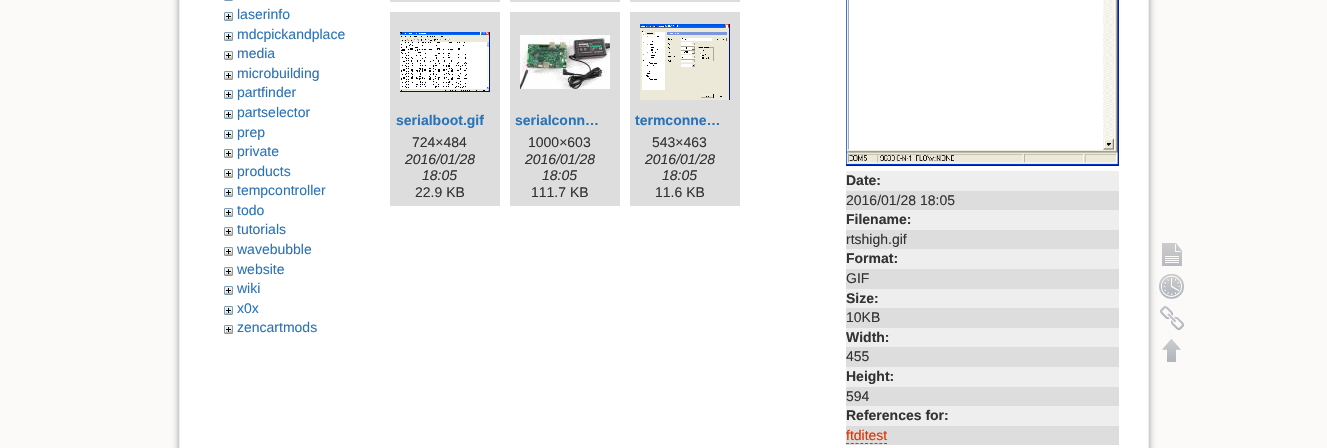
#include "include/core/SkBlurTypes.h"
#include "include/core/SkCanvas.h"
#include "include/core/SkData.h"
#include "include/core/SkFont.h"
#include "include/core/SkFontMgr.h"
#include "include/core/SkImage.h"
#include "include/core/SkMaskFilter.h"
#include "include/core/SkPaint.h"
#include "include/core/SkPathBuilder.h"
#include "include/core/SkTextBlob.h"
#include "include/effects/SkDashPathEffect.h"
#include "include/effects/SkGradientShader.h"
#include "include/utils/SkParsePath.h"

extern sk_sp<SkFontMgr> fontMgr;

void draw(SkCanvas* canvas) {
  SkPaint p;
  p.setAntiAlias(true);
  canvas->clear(SkColorSetRGB(251, 250, 249));
  p.setColor(SkColorSetRGB(153, 153, 153));
  p.setMaskFilter(SkMaskFilter::MakeBlur(kNormal_SkBlurStyle, 3.5f));
  canvas->drawRoundRect(SkRect::MakeLTRB(179, -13, 1149, 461), 2, 2, p);
  p.setMaskFilter(nullptr);
  p.setColor(SK_ColorWHITE);
  canvas->drawRect(SkRect::MakeLTRB(179.5f, -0.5f, 1148.5f, 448.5f), p);
  p.setStyle(SkPaint::kStroke_Style);
  p.setStrokeWidth(1);
  p.setColor(SkColorSetRGB(238, 238, 238));
  canvas->drawRect(SkRect::MakeLTRB(179.5f, -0.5f, 1148.5f, 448.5f), p);
  canvas->drawImageRect(SkImages::DeferredFromEncodedData(SkData::MakeFromFileName("images/1.png")), SkRect::MakeLTRB(224, 0, 233, 1), SkSamplingOptions());
  canvas->drawImageRect(SkImages::DeferredFromEncodedData(SkData::MakeFromFileName("images/2.png")), SkRect::MakeLTRB(224, 12, 233, 21), SkSamplingOptions());
  canvas->drawImageRect(SkImages::DeferredFromEncodedData(SkData::MakeFromFileName("images/2.png")), SkRect::MakeLTRB(224, 32, 233, 41), SkSamplingOptions());
  canvas->drawImageRect(SkImages::DeferredFromEncodedData(SkData::MakeFromFileName("images/2.png")), SkRect::MakeLTRB(224, 51, 233, 60), SkSamplingOptions());
  canvas->drawImageRect(SkImages::DeferredFromEncodedData(SkData::MakeFromFileName("images/2.png")), SkRect::MakeLTRB(224, 71, 233, 80), SkSamplingOptions());
  canvas->drawImageRect(SkImages::DeferredFromEncodedData(SkData::MakeFromFileName("images/2.png")), SkRect::MakeLTRB(224, 90, 233, 99), SkSamplingOptions());
  canvas->drawImageRect(SkImages::DeferredFromEncodedData(SkData::MakeFromFileName("images/2.png")), SkRect::MakeLTRB(224, 110, 233, 119), SkSamplingOptions());
  canvas->drawImageRect(SkImages::DeferredFromEncodedData(SkData::MakeFromFileName("images/2.png")), SkRect::MakeLTRB(224, 130, 233, 139), SkSamplingOptions());
  canvas->drawImageRect(SkImages::DeferredFromEncodedData(SkData::MakeFromFileName("images/2.png")), SkRect::MakeLTRB(224, 149, 233, 158), SkSamplingOptions());
  canvas->drawImageRect(SkImages::DeferredFromEncodedData(SkData::MakeFromFileName("images/2.png")), SkRect::MakeLTRB(224, 169, 233, 178), SkSamplingOptions());
  canvas->drawImageRect(SkImages::DeferredFromEncodedData(SkData::MakeFromFileName("images/2.png")), SkRect::MakeLTRB(224, 188, 233, 197), SkSamplingOptions());
  canvas->drawImageRect(SkImages::DeferredFromEncodedData(SkData::MakeFromFileName("images/2.png")), SkRect::MakeLTRB(224, 208, 233, 217), SkSamplingOptions());
  canvas->drawImageRect(SkImages::DeferredFromEncodedData(SkData::MakeFromFileName("images/2.png")), SkRect::MakeLTRB(224, 227, 233, 236), SkSamplingOptions());
  canvas->drawImageRect(SkImages::DeferredFromEncodedData(SkData::MakeFromFileName("images/2.png")), SkRect::MakeLTRB(224, 247, 233, 256), SkSamplingOptions());
  canvas->drawImageRect(SkImages::DeferredFromEncodedData(SkData::MakeFromFileName("images/2.png")), SkRect::MakeLTRB(224, 267, 233, 276), SkSamplingOptions());
  canvas->drawImageRect(SkImages::DeferredFromEncodedData(SkData::MakeFromFileName("images/2.png")), SkRect::MakeLTRB(224, 286, 233, 295), SkSamplingOptions());
  canvas->drawImageRect(SkImages::DeferredFromEncodedData(SkData::MakeFromFileName("images/2.png")), SkRect::MakeLTRB(224, 306, 233, 315), SkSamplingOptions());
  canvas->drawImageRect(SkImages::DeferredFromEncodedData(SkData::MakeFromFileName("images/2.png")), SkRect::MakeLTRB(224, 325, 233, 334), SkSamplingOptions());
  p.setStyle(SkPaint::kFill_Style);
  p.setColor(SkColorSetRGB(221, 221, 221));
  canvas->drawRect(SkRect::MakeLTRB(390, 0, 500, 2), p);
  canvas->drawRect(SkRect::MakeLTRB(510, 0, 620, 2), p);
  canvas->drawRect(SkRect::MakeLTRB(630, 0, 740, 2), p);
  canvas->drawRect(SkRect::MakeLTRB(390, 12, 500, 206), p);
  canvas->drawImageRect(SkImages::DeferredFromEncodedData(SkData::MakeFromFileName("images/3.png")), SkRect::MakeLTRB(400, 32, 490, 92), SkSamplingOptions());
  canvas->drawRect(SkRect::MakeLTRB(510, 12, 620, 206), p);
  canvas->drawImageRect(SkImages::DeferredFromEncodedData(SkData::MakeFromFileName("images/4.png")), SkRect::MakeLTRB(520, 35, 610, 89), SkSamplingOptions());
  canvas->drawRect(SkRect::MakeLTRB(630, 12, 740, 206), p);
  canvas->drawImageRect(SkImages::DeferredFromEncodedData(SkData::MakeFromFileName("images/5.png")), SkRect::MakeLTRB(640, 24, 730, 100), SkSamplingOptions());
  canvas->drawImageRect(SkImages::DeferredFromEncodedData(SkData::MakeFromFileName("images/6.png")), SkRect::MakeLTRB(846, 0, 1119, 166), SkSamplingOptions());
  p.setColor(SkColorSetRGB(238, 238, 238));
  canvas->drawRect(SkRect::MakeLTRB(846, 171, 1119, 191), p);
  p.setColor(SkColorSetRGB(221, 221, 221));
  canvas->drawRect(SkRect::MakeLTRB(846, 191, 1119, 210), p);
  p.setColor(SkColorSetRGB(238, 238, 238));
  canvas->drawRect(SkRect::MakeLTRB(846, 210, 1119, 230), p);
  p.setColor(SkColorSetRGB(221, 221, 221));
  canvas->drawRect(SkRect::MakeLTRB(846, 230, 1119, 249), p);
  p.setColor(SkColorSetRGB(238, 238, 238));
  canvas->drawRect(SkRect::MakeLTRB(846, 249, 1119, 269), p);
  p.setColor(SkColorSetRGB(221, 221, 221));
  canvas->drawRect(SkRect::MakeLTRB(846, 269, 1119, 289), p);
  p.setColor(SkColorSetRGB(238, 238, 238));
  canvas->drawRect(SkRect::MakeLTRB(846, 289, 1119, 308), p);
  p.setColor(SkColorSetRGB(221, 221, 221));
  canvas->drawRect(SkRect::MakeLTRB(846, 308, 1119, 328), p);
  p.setColor(SkColorSetRGB(238, 238, 238));
  canvas->drawRect(SkRect::MakeLTRB(846, 328, 1119, 347), p);
  p.setColor(SkColorSetRGB(221, 221, 221));
  canvas->drawRect(SkRect::MakeLTRB(846, 347, 1119, 367), p);
  p.setColor(SkColorSetRGB(238, 238, 238));
  canvas->drawRect(SkRect::MakeLTRB(846, 367, 1119, 387), p);
  p.setColor(SkColorSetRGB(221, 221, 221));
  canvas->drawRect(SkRect::MakeLTRB(846, 387, 1119, 406), p);
  p.setColor(SkColorSetRGB(238, 238, 238));
  canvas->drawRect(SkRect::MakeLTRB(846, 406, 1119, 426), p);
  p.setColor(SkColorSetRGB(221, 221, 221));
  canvas->drawRect(SkRect::MakeLTRB(846, 426, 1119, 445), p);
  p.setStyle(SkPaint::kStroke_Style);
  p.setColor(SkColorSetRGB(221, 51, 0));
  p.setPathEffect(SkDashPathEffect::Make({{3, 1.75f}}, 0));
  canvas->drawPath(SkPathBuilder().moveTo(846, 443.5f).lineTo(887, 443.5f).detach(), p);
  p.setPathEffect(nullptr);
  canvas->drawImageRect(SkImages::DeferredFromEncodedData(SkData::MakeFromFileName("images/7.png")), SkRect::MakeLTRB(1162, 243, 1182, 266), SkSamplingOptions());
  canvas->drawImageRect(SkImages::DeferredFromEncodedData(SkData::MakeFromFileName("images/8.png")), SkRect::MakeLTRB(1159, 274, 1184, 299), SkSamplingOptions());
  canvas->drawImageRect(SkImages::DeferredFromEncodedData(SkData::MakeFromFileName("images/9.png")), SkRect::MakeLTRB(1160, 306, 1184, 330), SkSamplingOptions());
  canvas->drawImageRect(SkImages::DeferredFromEncodedData(SkData::MakeFromFileName("images/10.png")), SkRect::MakeLTRB(1162, 339, 1181, 362), SkSamplingOptions());
  SkFont font1(fontMgr->matchFamilyStyle("Liberation Sans", SkFontStyle::Normal()), 14);
  font1.setSubpixel(true);
  p.setStyle(SkPaint::kFill_Style);
  p.setColor(SkColorSetRGB(43, 115, 183));
  canvas->drawString("laserinfo", 237, 19, font1, p);
  canvas->drawString("mdcpickandplace", 237, 39, font1, p);
  canvas->drawString("media", 237, 58, font1, p);
  canvas->drawString("microbuilding", 237, 78, font1, p);
  canvas->drawString("partfinder", 237, 97, font1, p);
  canvas->drawString("partselector", 237, 117, font1, p);
  canvas->drawString("prep", 237, 137, font1, p);
  canvas->drawString("private", 237, 156, font1, p);
  canvas->drawString("products", 237, 176, font1, p);
  canvas->drawString("tempcontroller", 237, 195, font1, p);
  canvas->drawString("todo", 237, 215, font1, p);
  canvas->drawString("tutorials", 237, 234, font1, p);
  canvas->drawString("wavebubble", 237, 254, font1, p);
  canvas->drawString("website", 237, 274, font1, p);
  canvas->drawString("wiki", 237, 293, font1, p);
  canvas->drawString("x0x", 237, 313, font1, p);
  canvas->drawString("zencartmods", 237, 332, font1, p);
  SkFont font2(fontMgr->matchFamilyStyle("Liberation Sans", SkFontStyle::Bold()), 14);
  font2.setSubpixel(true);
  canvas->drawString("serialboot.gif", 396, 125, font2, p);
  p.setColor(SkColorSetRGB(51, 51, 51));
  canvas->drawString("724×484", 412, 147, font1, p);
  SkFont font3(fontMgr->matchFamilyStyle("Liberation Sans", SkFontStyle::Italic()), 14);
  font3.setSubpixel(true);
  canvas->drawString("2016/01/28", 405, 164, font3, p);
  canvas->drawString("18:05", 422, 180, font3, p);
  canvas->drawString("22.9 KB", 415, 197, font1, p);
  p.setColor(SkColorSetRGB(43, 115, 183));
  canvas->drawString("serialconn…", 515, 125, font2, p);
  p.setColor(SkColorSetRGB(51, 51, 51));
  canvas->drawString("1000×603", 528, 147, font1, p);
  canvas->drawString("2016/01/28", 525, 164, font3, p);
  canvas->drawString("18:05", 542, 180, font3, p);
  canvas->drawString("111.7 KB", 531, 197, font1, p);
  p.setColor(SkColorSetRGB(43, 115, 183));
  canvas->drawString("termconne…", 635, 125, font2, p);
  p.setColor(SkColorSetRGB(51, 51, 51));
  canvas->drawString("543×463", 652, 147, font1, p);
  canvas->drawString("2016/01/28", 645, 164, font3, p);
  canvas->drawString("18:05", 662, 180, font3, p);
  canvas->drawString("11.6 KB", 655, 197, font1, p);
  canvas->drawString("Date:", 846, 185, font2, p);
  canvas->drawString("2016/01/28 18:05", 846, 205, font1, p);
  canvas->drawString("Filename:", 846, 224, font2, p);
  canvas->drawString("rtshigh.gif", 846, 244, font1, p);
  canvas->drawString("Format:", 846, 263, font2, p);
  canvas->drawString("GIF", 846, 283, font1, p);
  canvas->drawString("Size:", 846, 303, font2, p);
  canvas->drawString("10KB", 846, 322, font1, p);
  canvas->drawString("Width:", 846, 342, font2, p);
  canvas->drawString("455", 846, 361, font1, p);
  canvas->drawString("Height:", 846, 381, font2, p);
  canvas->drawString("594", 846, 401, font1, p);
  canvas->drawString("References for:", 846, 420, font2, p);
  p.setColor(SkColorSetRGB(221, 51, 0));
  canvas->drawString("ftditest", 846, 440, font1, p);
}
